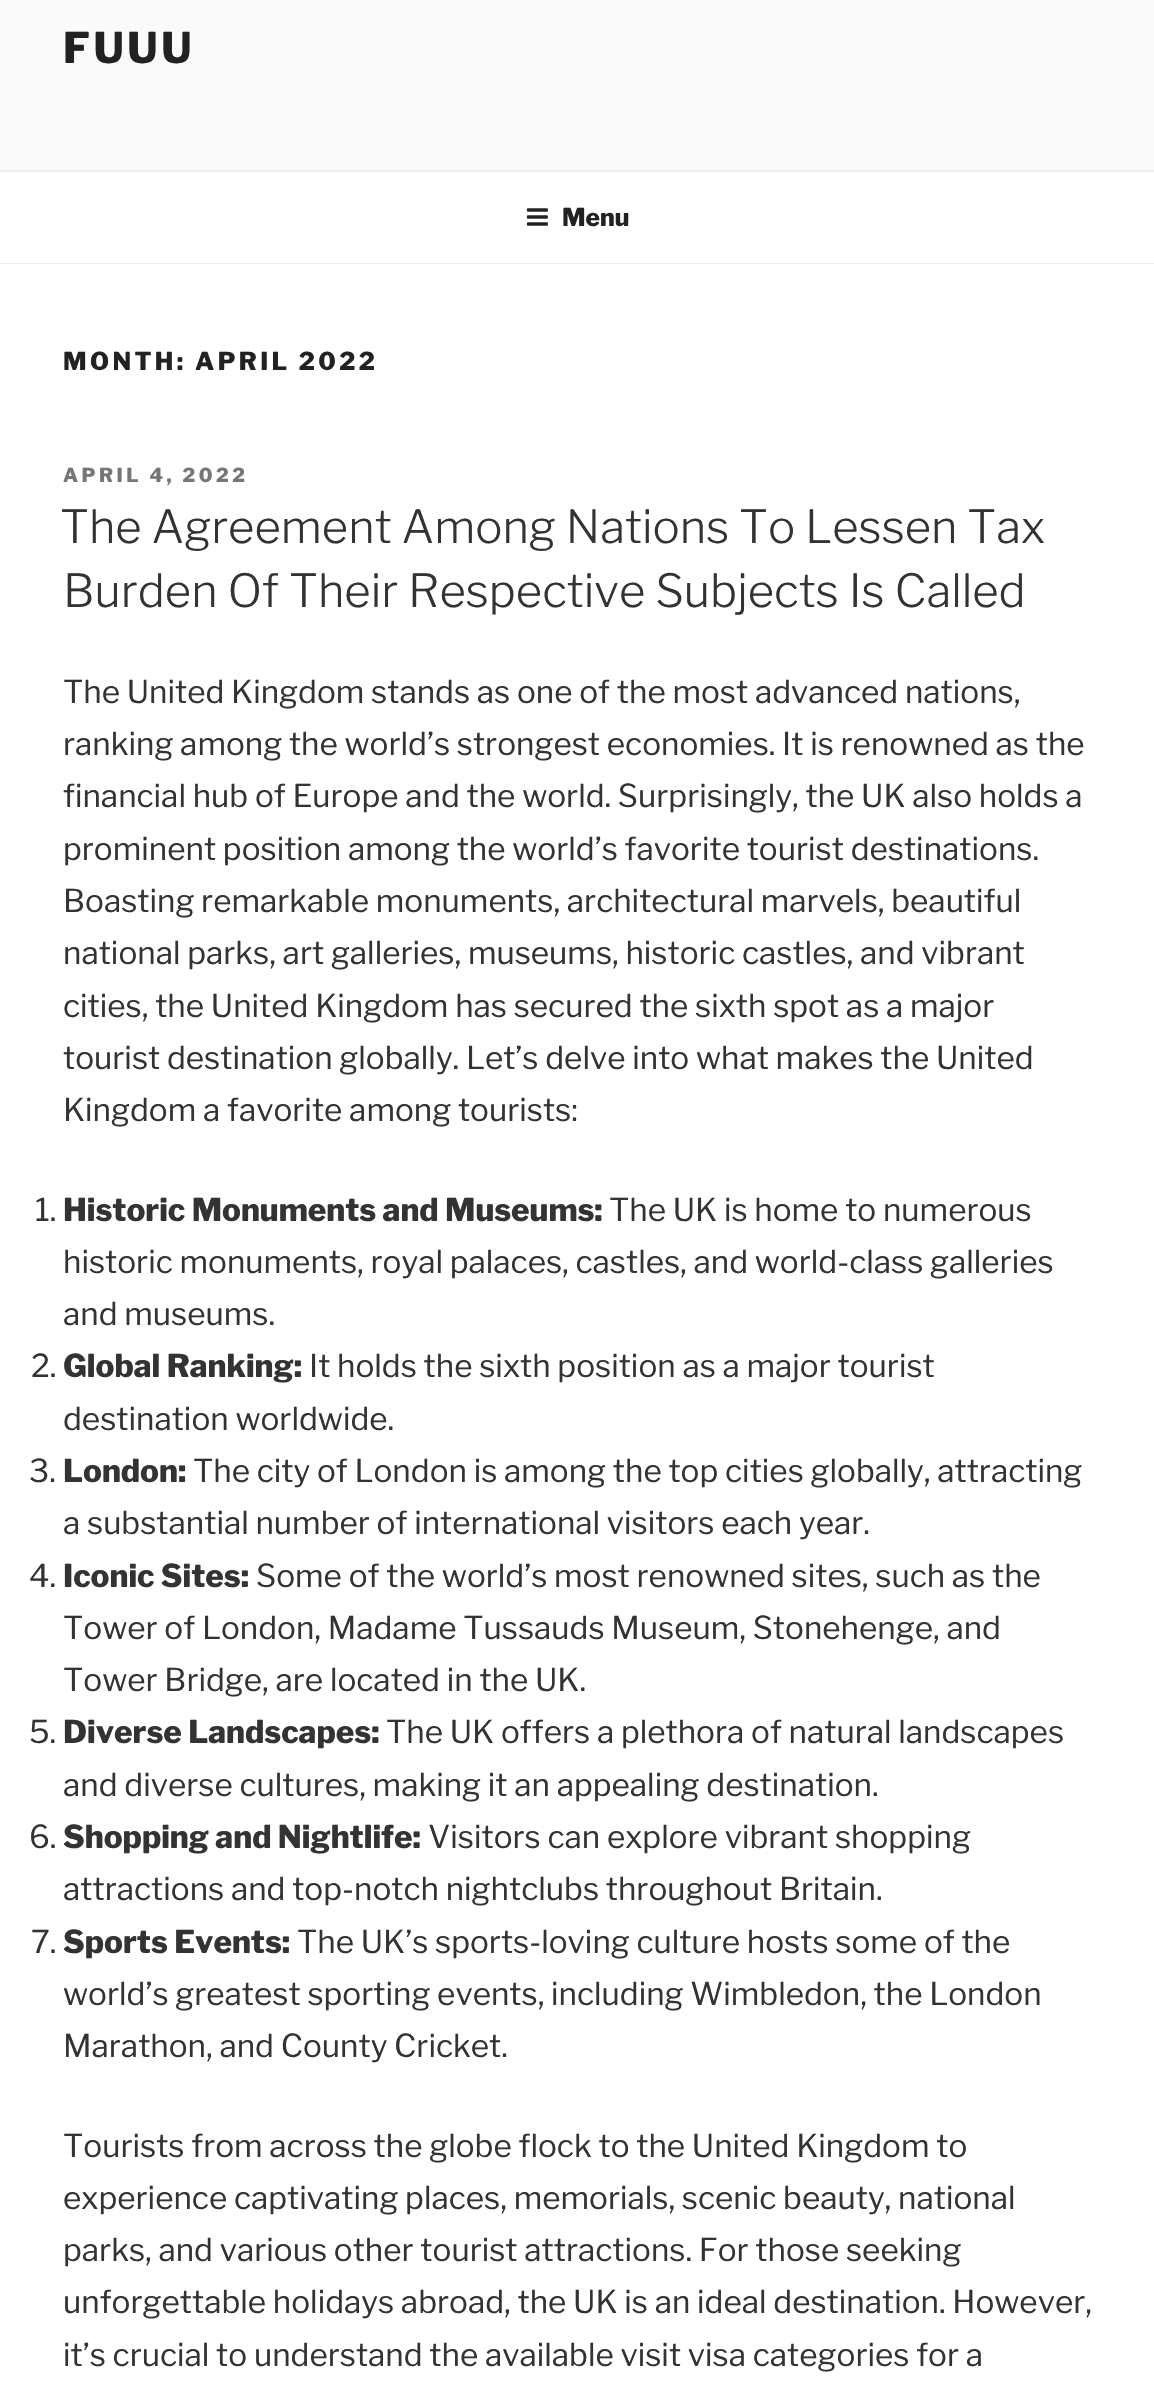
#include "include/core/SkBlurTypes.h"
#include "include/core/SkCanvas.h"
#include "include/core/SkData.h"
#include "include/core/SkFont.h"
#include "include/core/SkFontMgr.h"
#include "include/core/SkImage.h"
#include "include/core/SkMaskFilter.h"
#include "include/core/SkPaint.h"
#include "include/core/SkPathBuilder.h"
#include "include/core/SkTextBlob.h"
#include "include/effects/SkDashPathEffect.h"
#include "include/effects/SkGradientShader.h"
#include "include/utils/SkParsePath.h"

extern sk_sp<SkFontMgr> fontMgr;

void draw(SkCanvas* canvas) {
  SkPaint p;
  p.setAntiAlias(true);
  auto spacedText = [&](const char* s, float x, float y, const SkFont& font, const SkPaint& ink, float letter, float word) {
    std::vector<SkGlyphID> glyphs(font.countText(s, strlen(s), SkTextEncoding::kUTF8));
    std::vector<float> xs(glyphs.size());
    font.textToGlyphs(s, strlen(s), SkTextEncoding::kUTF8, glyphs);
    font.getXPos(glyphs, xs, x);
    float extra = 0;
    for (size_t i = 0; i < glyphs.size(); i++) {
      xs[i] += extra;
      extra += letter + word * (glyphs[i] == font.unicharToGlyph(' '));
    }
    canvas->drawTextBlob(SkTextBlob::MakeFromPosHGlyphs(glyphs, xs, y, font), 0, 0, ink);
  };
  canvas->clear(SkColorSetRGB(250, 250, 250));
  p.setColor(SK_ColorWHITE);
  canvas->drawRect(SkRect::MakeLTRB(0, 172, 1154, 263), p);
  p.setColor(SkColorSetRGB(238, 238, 238));
  canvas->drawRect(SkRect::MakeLTRB(0, 170, 1154, 172), p);
  canvas->drawRect(SkRect::MakeLTRB(0, 263, 1154, 264), p);
  canvas->drawImageRect(SkImages::DeferredFromEncodedData(SkData::MakeFromFileName("images/1.png")), SkRect::MakeLTRB(526, 208, 548, 226), SkSamplingOptions());
  p.setColor(SK_ColorWHITE);
  canvas->drawRect(SkRect::MakeLTRB(0, 264, 1154, 2391), p);
  SkFont font1(fontMgr->matchFamilyStyle("Libre Franklin", SkFontStyle(100, SkFontStyle::kNormal_Width, SkFontStyle::kUpright_Slant)), 42);
  font1.setSubpixel(true);
  p.setColor(SkColorSetRGB(34, 34, 34));
  spacedText("FUUU", 63, 63, font1, p, 3.5f, 0);
  SkFont font2(fontMgr->matchFamilyStyle("Libre Franklin", SkFontStyle(100, SkFontStyle::kNormal_Width, SkFontStyle::kUpright_Slant)), 24.5f);
  font2.setSubpixel(true);
  canvas->drawString("Menu", 562, 226, font2, p);
  spacedText("MONTH: APRIL 2022", 63, 370, font2, p, 3.4f, 0);
  SkFont font3(fontMgr->matchFamilyStyle("Libre Franklin", SkFontStyle(100, SkFontStyle::kNormal_Width, SkFontStyle::kUpright_Slant)), 19.25f);
  font3.setSubpixel(true);
  p.setColor(SkColorSetRGB(118, 118, 118));
  spacedText("APRIL 4, 2022", 63, 482, font3, p, 3.5f, 0);
  SkFont font4(fontMgr->matchFamilyStyle("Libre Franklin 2", SkFontStyle(100, SkFontStyle::kNormal_Width, SkFontStyle::kUpright_Slant)), 45.5f);
  font4.setSubpixel(true);
  p.setColor(SkColorSetRGB(51, 51, 51));
  canvas->drawString("The Agreement Among Nations To Lessen Tax", 60, 543, font4, p);
  canvas->drawString("Burden Of Their Respective Subjects Is Called", 63, 607, font4, p);
  SkFont font5(fontMgr->matchFamilyStyle("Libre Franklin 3", SkFontStyle(100, SkFontStyle::kNormal_Width, SkFontStyle::kUpright_Slant)), 31.5f);
  font5.setSubpixel(true);
  canvas->drawString("The United Kingdom stands as one of the most advanced nations,", 63, 703, font5, p);
  canvas->drawString("ranking among the world’s strongest economies. It is renowned as the", 63, 755, font5, p);
  canvas->drawString("financial hub of Europe and the world. Surprisingly, the UK also holds a", 63, 807, font5, p);
  canvas->drawString("prominent position among the world’s favorite tourist destinations.", 63, 860, font5, p);
  canvas->drawString("Boasting remarkable monuments, architectural marvels, beautiful", 63, 912, font5, p);
  canvas->drawString("national parks, art galleries, museums, historic castles, and vibrant", 63, 964, font5, p);
  canvas->drawString("cities, the United Kingdom has secured the sixth spot as a major", 63, 1017, font5, p);
  canvas->drawString("tourist destination globally. Let’s delve into what makes the United", 63, 1069, font5, p);
  canvas->drawString("Kingdom a favorite among tourists:", 63, 1121, font5, p);
  canvas->drawString("1.", 35, 1221, font5, p);
  SkFont font6(fontMgr->matchFamilyStyle("Libre Franklin", SkFontStyle(100, SkFontStyle::kNormal_Width, SkFontStyle::kUpright_Slant)), 31.5f);
  font6.setSubpixel(true);
  canvas->drawString("Historic Monuments and Museums:", 63, 1221, font6, p);
  canvas->drawString("The UK is home to numerous", 609, 1221, font5, p);
  canvas->drawString("historic monuments, royal palaces, castles, and world-class galleries", 63, 1273, font5, p);
  canvas->drawString("and museums.", 63, 1325, font5, p);
  canvas->drawString("2.", 31, 1377, font5, p);
  canvas->drawString("Global Ranking:", 63, 1377, font6, p);
  canvas->drawString("It holds the sixth position as a major tourist", 309, 1377, font5, p);
  canvas->drawString("destination worldwide.", 63, 1430, font5, p);
  canvas->drawString("3.", 29, 1482, font5, p);
  canvas->drawString("London:", 63, 1482, font6, p);
  canvas->drawString("The city of London is among the top cities globally, attracting", 193, 1482, font5, p);
  canvas->drawString("a substantial number of international visitors each year.", 63, 1534, font5, p);
  canvas->drawString("4.", 29, 1587, font5, p);
  canvas->drawString("Iconic Sites:", 63, 1587, font6, p);
  canvas->drawString("Some of the world’s most renowned sites, such as the", 256, 1587, font5, p);
  canvas->drawString("Tower of London, Madame Tussauds Museum, Stonehenge, and", 63, 1639, font5, p);
  canvas->drawString("Tower Bridge, are located in the UK.", 63, 1691, font5, p);
  canvas->drawString("5.", 29, 1743, font5, p);
  canvas->drawString("Diverse Landscapes:", 63, 1743, font6, p);
  canvas->drawString("The UK offers a plethora of natural landscapes", 386, 1743, font5, p);
  canvas->drawString("and diverse cultures, making it an appealing destination.", 63, 1796, font5, p);
  canvas->drawString("6.", 29, 1848, font5, p);
  canvas->drawString("Shopping and Nightlife:", 63, 1848, font6, p);
  canvas->drawString("Visitors can explore vibrant shopping", 428, 1848, font5, p);
  canvas->drawString("attractions and top-notch nightclubs throughout Britain.", 63, 1900, font5, p);
  canvas->drawString("7.", 31, 1953, font5, p);
  canvas->drawString("Sports Events:", 63, 1953, font6, p);
  canvas->drawString("The UK’s sports-loving culture hosts some of the", 297, 1953, font5, p);
  canvas->drawString("world’s greatest sporting events, including Wimbledon, the London", 63, 2005, font5, p);
  canvas->drawString("Marathon, and County Cricket.", 63, 2057, font5, p);
  canvas->drawString("Tourists from across the globe flock to the United Kingdom to", 63, 2157, font5, p);
  canvas->drawString("experience captivating places, memorials, scenic beauty, national", 63, 2209, font5, p);
  canvas->drawString("parks, and various other tourist attractions. For those seeking", 63, 2261, font5, p);
  canvas->drawString("unforgettable holidays abroad, the UK is an ideal destination. However,", 63, 2313, font5, p);
  canvas->drawString("it’s crucial to understand the available visit visa categories for a", 63, 2366, font5, p);
}
